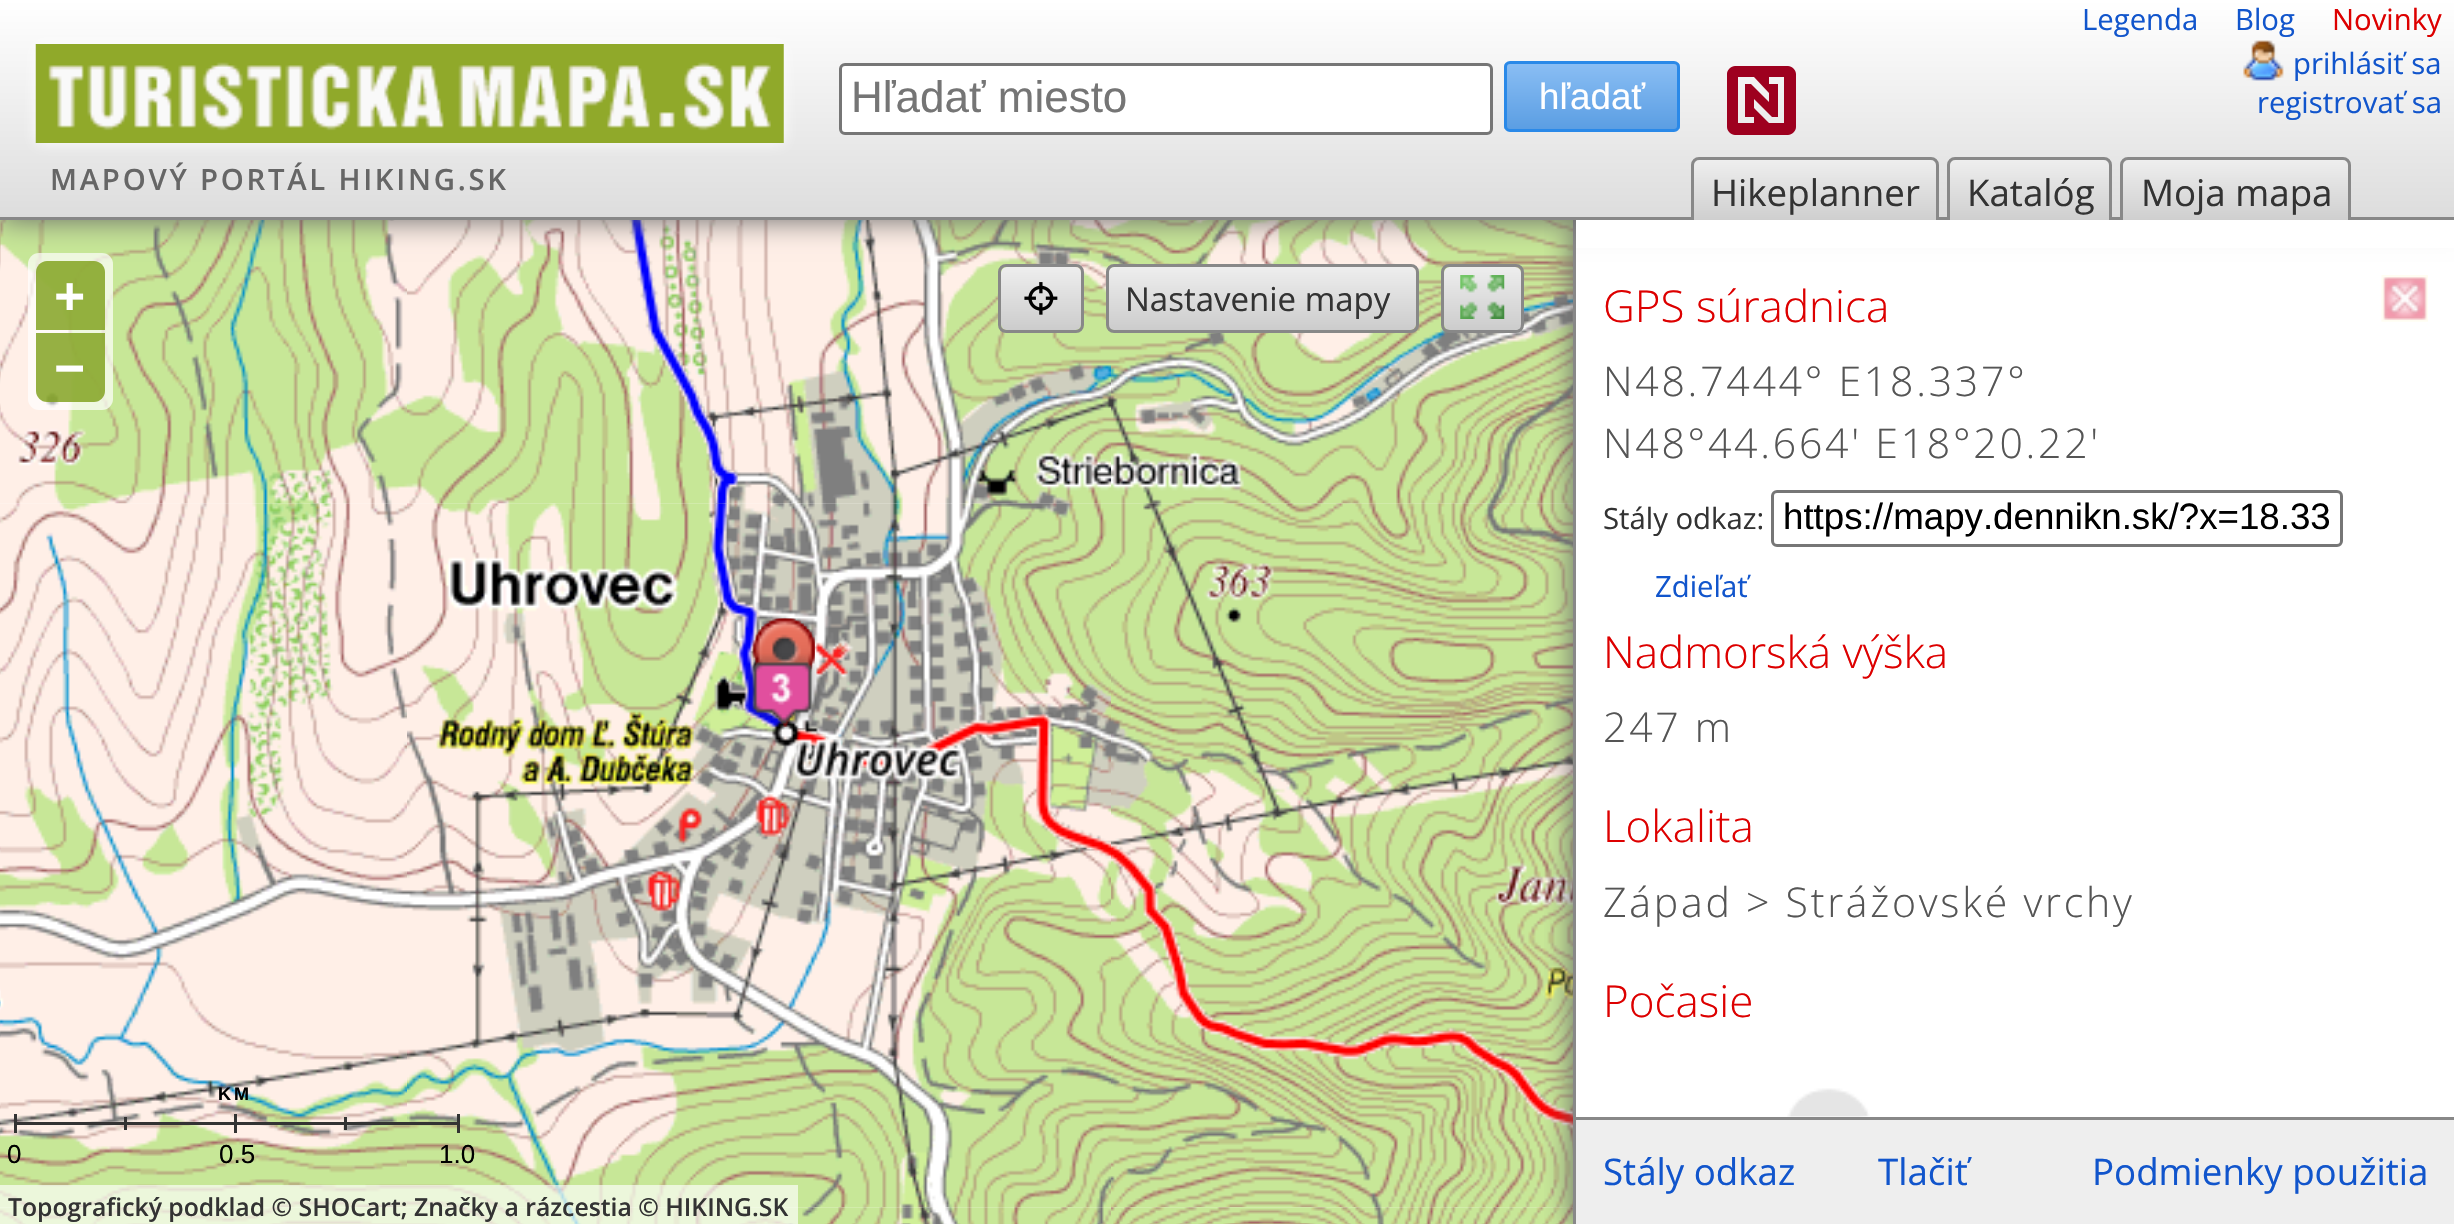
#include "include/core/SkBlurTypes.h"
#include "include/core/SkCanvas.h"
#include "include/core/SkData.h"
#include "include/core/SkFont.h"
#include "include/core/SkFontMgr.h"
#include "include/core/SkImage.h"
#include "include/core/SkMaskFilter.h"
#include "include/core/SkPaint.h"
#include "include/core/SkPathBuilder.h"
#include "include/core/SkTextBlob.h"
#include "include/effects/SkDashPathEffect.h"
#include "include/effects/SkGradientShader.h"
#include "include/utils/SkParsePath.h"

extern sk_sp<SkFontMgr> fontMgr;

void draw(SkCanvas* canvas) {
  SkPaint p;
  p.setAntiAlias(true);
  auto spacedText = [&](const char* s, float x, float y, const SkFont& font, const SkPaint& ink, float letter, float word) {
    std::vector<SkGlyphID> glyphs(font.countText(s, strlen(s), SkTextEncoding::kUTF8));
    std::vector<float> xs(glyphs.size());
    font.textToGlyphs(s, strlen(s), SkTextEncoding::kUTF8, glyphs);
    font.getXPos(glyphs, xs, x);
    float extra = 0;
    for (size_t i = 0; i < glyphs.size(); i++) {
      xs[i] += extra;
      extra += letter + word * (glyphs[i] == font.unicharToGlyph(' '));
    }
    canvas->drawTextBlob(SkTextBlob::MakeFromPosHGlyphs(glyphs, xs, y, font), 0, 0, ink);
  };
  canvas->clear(SK_ColorWHITE);
  canvas->drawImageRect(SkImages::DeferredFromEncodedData(SkData::MakeFromFileName("images/6.png")), SkRect::MakeLTRB(0, 503, 407, 1208), SkSamplingOptions());
  canvas->drawImageRect(SkImages::DeferredFromEncodedData(SkData::MakeFromFileName("images/3.png")), SkRect::MakeLTRB(0, 220, 407, 504), SkSamplingOptions());
  canvas->drawImageRect(SkImages::DeferredFromEncodedData(SkData::MakeFromFileName("images/7.png")), SkRect::MakeLTRB(407, 503, 1111, 1208), SkSamplingOptions());
  canvas->drawImageRect(SkImages::DeferredFromEncodedData(SkData::MakeFromFileName("images/4.png")), SkRect::MakeLTRB(407, 220, 1111, 504), SkSamplingOptions());
  canvas->drawImageRect(SkImages::DeferredFromEncodedData(SkData::MakeFromFileName("images/8.png")), SkRect::MakeLTRB(1111, 503, 1573, 1208), SkSamplingOptions());
  canvas->drawImageRect(SkImages::DeferredFromEncodedData(SkData::MakeFromFileName("images/5.png")), SkRect::MakeLTRB(1111, 220, 1573, 504), SkSamplingOptions());
  canvas->drawImageRect(SkImages::DeferredFromEncodedData(SkData::MakeFromFileName("images/13.png")), SkRect::MakeLTRB(711, 503, 1111, 859), SkSamplingOptions());
  canvas->drawImageRect(SkImages::DeferredFromEncodedData(SkData::MakeFromFileName("images/12.png")), SkRect::MakeLTRB(629, 220, 738, 504), SkSamplingOptions());
  p.setColor(SkColorSetARGB(179, 255, 255, 255));
  canvas->drawRoundRect(SkRect::MakeLTRB(28, 253, 113, 410), 11, 11, p);
  p.setColor(SkColorSetARGB(204, 124, 158, 21));
  canvas->drawPath(SkPathBuilder().moveTo(47, 261).lineTo(94, 261).cubicTo(100, 261, 105, 266, 105, 272).lineTo(105, 330).lineTo(36, 330).lineTo(36, 272).cubicTo(36, 266, 41, 261, 47, 261).close().detach(), p);
  canvas->drawImageRect(SkImages::DeferredFromEncodedData(SkData::MakeFromFileName("images/11.png")), SkRect::MakeLTRB(1111, 1207, 1573, 1224), SkSamplingOptions());
  canvas->drawImageRect(SkImages::DeferredFromEncodedData(SkData::MakeFromFileName("images/14.png")), SkRect::MakeLTRB(1111, 843, 1573, 1129), SkSamplingOptions());
  canvas->save();
  canvas->clipRect(SkRect::MakeLTRB(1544, 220, 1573, 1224));
  p.setColor(SkColorSetRGB(102, 102, 102));
  p.setMaskFilter(SkMaskFilter::MakeBlur(kNormal_SkBlurStyle, 14));
  canvas->drawRect(SkRect::MakeLTRB(1573, 220, 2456, 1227), p);
  p.setMaskFilter(nullptr);
  canvas->restore();
  p.setColor(SkColorSetRGB(136, 136, 136));
  canvas->drawRect(SkRect::MakeLTRB(1573, 220, 1576, 1224), p);
  p.setColor(SkColorSetRGB(102, 102, 102));
  p.setMaskFilter(SkMaskFilter::MakeBlur(kNormal_SkBlurStyle, 14));
  canvas->drawRect(SkRect::MakeLTRB(0, 0, 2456, 220), p);
  p.setMaskFilter(nullptr);
  {
    const SkColor colors[] = {SK_ColorWHITE, SkColorSetRGB(221, 221, 221)};
    const float stops[] = {0, 1};
    const SkPoint ends[] = {{0, 0}, {0, 217}};
    p.setShader(SkGradientShader::MakeLinear(ends, colors, stops, 2, SkTileMode::kClamp));
    p.setAlpha(255);
  }
  canvas->drawRect(SkRect::MakeLTRB(0, 0, 2454, 217), p);
  p.setShader(nullptr);
  p.setColor(SkColorSetRGB(136, 136, 136));
  canvas->drawRect(SkRect::MakeLTRB(0, 217, 2454, 220), p);
  p.setColor(SK_ColorWHITE);
  canvas->drawRoundRect(SkRect::MakeLTRB(840.5f, 64.5f, 1491.5f, 133.5f), 4.5f, 4.5f, p);
  p.setStyle(SkPaint::kStroke_Style);
  p.setStrokeWidth(3);
  p.setColor(SkColorSetRGB(118, 118, 118));
  canvas->drawRoundRect(SkRect::MakeLTRB(840.5f, 64.5f, 1491.5f, 133.5f), 4.5f, 4.5f, p);
  canvas->save();
  canvas->clipPath(SkPathBuilder().moveTo(1510, 61).lineTo(1674, 61).cubicTo(1677.5f, 61, 1680, 63.5f, 1680, 67).lineTo(1680, 126).cubicTo(1680, 129.5f, 1677.5f, 132, 1674, 132).lineTo(1510, 132).cubicTo(1506.5f, 132, 1504, 129.5f, 1504, 126).lineTo(1504, 67).cubicTo(1504, 63.5f, 1506.5f, 61, 1510, 61).close().detach(), true);
  p.setStyle(SkPaint::kFill_Style);
  {
    const SkColor colors[] = {SkColorSetRGB(138, 190, 244), SkColorSetRGB(91, 158, 227)};
    const float stops[] = {0, 1};
    const SkPoint ends[] = {{1507, 63}, {1507, 129}};
    p.setShader(SkGradientShader::MakeLinear(ends, colors, stops, 2, SkTileMode::kClamp));
    p.setAlpha(255);
  }
  canvas->drawRect(SkRect::MakeLTRB(1504, 63, 1680, 129), p);
  canvas->restore();
  p.setStyle(SkPaint::kStroke_Style);
  p.setShader(nullptr);
  p.setColor(SkColorSetRGB(42, 137, 232));
  canvas->drawRoundRect(SkRect::MakeLTRB(1505.5f, 62.5f, 1678.5f, 130.5f), 4.5f, 4.5f, p);
  p.setStyle(SkPaint::kFill_Style);
  p.setColor(SkColorSetRGB(158, 0, 31));
  canvas->drawPath(SkPathBuilder(SkPathFillType::kEvenOdd).moveTo(1735, 66).cubicTo(1731, 66, 1727, 70, 1727, 74).lineTo(1727, 127).cubicTo(1727, 131, 1731, 135, 1735, 135).lineTo(1788, 135).cubicTo(1792, 135, 1796, 131, 1796, 127).lineTo(1796, 74).cubicTo(1796, 70, 1792, 66, 1788, 66).close().moveTo(1754, 77).lineTo(1769, 93).lineTo(1769, 102).lineTo(1751, 84).lineTo(1745, 84).lineTo(1745, 117).lineTo(1754, 117).lineTo(1754, 123).lineTo(1738, 123).lineTo(1738, 77).close().moveTo(1784, 77).lineTo(1784, 123).lineTo(1769, 123).lineTo(1754, 108).lineTo(1754, 99).lineTo(1772, 117).lineTo(1778, 117).lineTo(1778, 84).lineTo(1769, 84).lineTo(1769, 77).close().detach(), p);
  canvas->drawImageRect(SkImages::DeferredFromEncodedData(SkData::MakeFromFileName("images/1.png")), SkRect::MakeLTRB(2243, 40, 2284, 81), SkSamplingOptions());
  p.setColor(SK_ColorWHITE);
  p.setMaskFilter(SkMaskFilter::MakeBlur(kNormal_SkBlurStyle, 7));
  canvas->drawRect(SkRect::MakeLTRB(36, 44, 784, 143), p);
  p.setMaskFilter(nullptr);
  canvas->drawImageRect(SkImages::DeferredFromEncodedData(SkData::MakeFromFileName("images/2.png")), SkRect::MakeLTRB(35, 44, 784, 143), SkSamplingOptions());
  {
    const SkColor colors[] = {SkColorSetRGB(238, 238, 238), SkColorSetRGB(204, 204, 204)};
    const float stops[] = {0, 1};
    const SkPoint ends[] = {{1694, 160}, {1694, 226}};
    p.setShader(SkGradientShader::MakeLinear(ends, colors, stops, 2, SkTileMode::kClamp));
    p.setAlpha(255);
  }
  canvas->drawRoundRect(SkRect::MakeLTRB(1694, 160, 1936, 226), 6, 6, p);
  p.setStyle(SkPaint::kStroke_Style);
  p.setShader(nullptr);
  p.setColor(SkColorSetRGB(136, 136, 136));
  canvas->drawRoundRect(SkRect::MakeLTRB(1692.5f, 158.5f, 1937.5f, 226.5f), 6.5f, 6.5f, p);
  p.setStyle(SkPaint::kFill_Style);
  {
    const SkColor colors[] = {SkColorSetRGB(238, 238, 238), SkColorSetRGB(204, 204, 204)};
    const float stops[] = {0, 1};
    const SkPoint ends[] = {{1950, 160}, {1950, 226}};
    p.setShader(SkGradientShader::MakeLinear(ends, colors, stops, 2, SkTileMode::kClamp));
    p.setAlpha(255);
  }
  canvas->drawRoundRect(SkRect::MakeLTRB(1950, 160, 2109, 226), 6, 6, p);
  p.setStyle(SkPaint::kStroke_Style);
  p.setShader(nullptr);
  p.setColor(SkColorSetRGB(136, 136, 136));
  canvas->drawRoundRect(SkRect::MakeLTRB(1948.5f, 158.5f, 2110.5f, 226.5f), 6.5f, 6.5f, p);
  p.setStyle(SkPaint::kFill_Style);
  {
    const SkColor colors[] = {SkColorSetRGB(238, 238, 238), SkColorSetRGB(204, 204, 204)};
    const float stops[] = {0, 1};
    const SkPoint ends[] = {{2123, 160}, {2123, 226}};
    p.setShader(SkGradientShader::MakeLinear(ends, colors, stops, 2, SkTileMode::kClamp));
    p.setAlpha(255);
  }
  canvas->drawRoundRect(SkRect::MakeLTRB(2123, 160, 2349, 226), 6, 6, p);
  p.setStyle(SkPaint::kStroke_Style);
  p.setShader(nullptr);
  p.setColor(SkColorSetRGB(136, 136, 136));
  canvas->drawRoundRect(SkRect::MakeLTRB(2121.5f, 158.5f, 2349.5f, 226.5f), 6.5f, 6.5f, p);
  p.setStyle(SkPaint::kFill_Style);
  p.setColor(SK_ColorWHITE);
  canvas->drawRect(SkRect::MakeLTRB(1576, 220, 2454, 248), p);
  canvas->drawImageRect(SkImages::DeferredFromEncodedData(SkData::MakeFromFileName("images/9.png")), SkRect::MakeLTRB(0, 1207, 407, 1224), SkSamplingOptions());
  canvas->drawImageRect(SkImages::DeferredFromEncodedData(SkData::MakeFromFileName("images/10.png")), SkRect::MakeLTRB(407, 1207, 1111, 1224), SkSamplingOptions());
  canvas->drawImageRect(SkImages::DeferredFromEncodedData(SkData::MakeFromFileName("images/16.png")), SkRect::MakeLTRB(752, 618, 815, 727), SkSamplingOptions());
  canvas->drawImageRect(SkImages::DeferredFromEncodedData(SkData::MakeFromFileName("images/15.png")), SkRect::MakeLTRB(745, 618, 820, 729), SkSamplingOptions());
  p.setColor(SkColorSetARGB(204, 124, 158, 21));
  canvas->drawPath(SkPathBuilder().moveTo(36, 333).lineTo(105, 333).lineTo(105, 391).cubicTo(105, 397, 100, 402, 94, 402).lineTo(47, 402).cubicTo(41, 402, 36, 397, 36, 391).close().detach(), p);
  p.setColor(SkColorSetRGB(51, 51, 51));
  canvas->drawRect(SkRect::MakeLTRB(14, 1114, 17, 1133), p);
  canvas->drawRect(SkRect::MakeLTRB(124, 1117, 127, 1130), p);
  canvas->drawRect(SkRect::MakeLTRB(234, 1114, 237, 1133), p);
  canvas->drawRect(SkRect::MakeLTRB(237, 1122, 457, 1125), p);
  canvas->drawRect(SkRect::MakeLTRB(344, 1117, 347, 1130), p);
  canvas->drawRect(SkRect::MakeLTRB(457, 1114, 460, 1133), p);
  canvas->drawRect(SkRect::MakeLTRB(14, 1122, 124, 1125), p);
  canvas->drawRect(SkRect::MakeLTRB(124, 1122, 234, 1125), p);
  p.setColor(SkColorSetARGB(166, 255, 255, 255));
  canvas->drawRect(SkRect::MakeLTRB(0, 1185, 798, 1224), p);
  {
    const SkColor colors[] = {SkColorSetRGB(238, 238, 238), SkColorSetRGB(204, 204, 204)};
    const float stops[] = {0, 1};
    const SkPoint ends[] = {{1001, 267}, {1001, 330}};
    p.setShader(SkGradientShader::MakeLinear(ends, colors, stops, 2, SkTileMode::kClamp));
    p.setAlpha(255);
  }
  canvas->drawRoundRect(SkRect::MakeLTRB(1001, 267, 1081, 330), 6, 6, p);
  canvas->drawImageRect(SkImages::DeferredFromEncodedData(SkData::MakeFromFileName("images/17.png")), SkRect::MakeLTRB(1024, 282, 1058, 315), SkSamplingOptions());
  p.setStyle(SkPaint::kStroke_Style);
  p.setShader(nullptr);
  p.setColor(SkColorSetRGB(136, 136, 136));
  canvas->drawRoundRect(SkRect::MakeLTRB(999.5f, 265.5f, 1082.5f, 331.5f), 6.5f, 6.5f, p);
  p.setStyle(SkPaint::kFill_Style);
  {
    const SkColor colors[] = {SkColorSetRGB(238, 238, 238), SkColorSetRGB(204, 204, 204)};
    const float stops[] = {0, 1};
    const SkPoint ends[] = {{1108, 267}, {1108, 330}};
    p.setShader(SkGradientShader::MakeLinear(ends, colors, stops, 2, SkTileMode::kClamp));
    p.setAlpha(255);
  }
  canvas->drawRoundRect(SkRect::MakeLTRB(1108, 267, 1416, 330), 6, 6, p);
  p.setStyle(SkPaint::kStroke_Style);
  p.setShader(nullptr);
  p.setColor(SkColorSetRGB(136, 136, 136));
  canvas->drawRoundRect(SkRect::MakeLTRB(1107.5f, 265.5f, 1417.5f, 331.5f), 6.5f, 6.5f, p);
  p.setStyle(SkPaint::kFill_Style);
  {
    const SkColor colors[] = {SkColorSetRGB(238, 238, 238), SkColorSetRGB(204, 204, 204)};
    const float stops[] = {0, 1};
    const SkPoint ends[] = {{1444, 267}, {1444, 330}};
    p.setShader(SkGradientShader::MakeLinear(ends, colors, stops, 2, SkTileMode::kClamp));
    p.setAlpha(255);
  }
  canvas->drawRoundRect(SkRect::MakeLTRB(1444, 267, 1521, 330), 6, 6, p);
  canvas->drawImageRect(SkImages::DeferredFromEncodedData(SkData::MakeFromFileName("images/18.png")), SkRect::MakeLTRB(1460, 275, 1505, 319), SkSamplingOptions());
  p.setStyle(SkPaint::kStroke_Style);
  p.setShader(nullptr);
  p.setColor(SkColorSetRGB(136, 136, 136));
  canvas->drawRoundRect(SkRect::MakeLTRB(1442.5f, 265.5f, 1522.5f, 331.5f), 6.5f, 6.5f, p);
  p.setColor(SkColorSetRGB(118, 118, 118));
  canvas->drawRoundRect(SkRect::MakeLTRB(1772.5f, 491.5f, 2341.5f, 545.5f), 4.5f, 4.5f, p);
  canvas->drawImageRect(SkImages::DeferredFromEncodedData(SkData::MakeFromFileName("images/19.png")), SkRect::MakeLTRB(1787, 1088, 1870, 1117), SkSamplingOptions());
  canvas->drawImageRect(SkImages::DeferredFromEncodedData(SkData::MakeFromFileName("images/20.png")), SkRect::MakeLTRB(2381, 275, 2428, 322), SkSamplingOptions());
  p.setStyle(SkPaint::kFill_Style);
  p.setColor(SkColorSetRGB(238, 238, 238));
  canvas->drawRect(SkRect::MakeLTRB(1576, 1120, 2454, 1224), p);
  p.setColor(SkColorSetRGB(136, 136, 136));
  canvas->drawRect(SkRect::MakeLTRB(1576, 1117, 2454, 1120), p);
  SkFont font1(fontMgr->matchFamilyStyle("Liberation Sans", SkFontStyle::Normal()), 44);
  font1.setSubpixel(true);
  p.setColor(SkColorSetRGB(117, 117, 117));
  canvas->drawString("Hľadať miesto", 851, 112, font1, p);
  SkFont font2(fontMgr->matchFamilyStyle("Liberation Sans", SkFontStyle::Normal()), 36.7f);
  font2.setSubpixel(true);
  p.setColor(SK_ColorWHITE);
  canvas->drawString("hľadať", 1539, 109, font2, p);
  SkFont font3(fontMgr->matchFamilyStyle("Open Sans", SkFontStyle::Normal()), 29.3f);
  font3.setSubpixel(true);
  p.setColor(SkColorSetRGB(17, 85, 204));
  canvas->drawString("Legenda", 2082, 30, font3, p);
  canvas->drawString("Blog", 2235, 30, font3, p);
  p.setColor(SkColorSetRGB(221, 0, 0));
  canvas->drawString("Novinky", 2332, 30, font3, p);
  p.setColor(SkColorSetRGB(17, 85, 204));
  canvas->drawString("prihlásiť sa", 2293, 74, font3, p);
  canvas->drawString("registrovať sa", 2257, 113, font3, p);
  SkFont font4(fontMgr->matchFamilyStyle("Open Sans", SkFontStyle(600, SkFontStyle::kNormal_Width, SkFontStyle::kUpright_Slant)), 29.3f);
  font4.setSubpixel(true);
  p.setColor(SkColorSetRGB(102, 102, 102));
  spacedText("MAPOVÝ PORTÁL HIKING.SK", 50, 190, font4, p, 2.75f, 0);
  SkFont font5(fontMgr->matchFamilyStyle("Open Sans", SkFontStyle::Normal()), 36.7f);
  font5.setSubpixel(true);
  p.setColor(SkColorSetRGB(51, 51, 51));
  canvas->drawString("Hikeplanner", 1711, 206, font5, p);
  canvas->drawString("Katalóg", 1967, 206, font5, p);
  canvas->drawString("Moja mapa", 2141, 206, font5, p);
  SkFont font6(fontMgr->matchFamilyStyle("Open Sans", SkFontStyle::Bold()), 55);
  font6.setSubpixel(true);
  p.setColor(SK_ColorWHITE);
  canvas->drawString("+", 54, 316, font6, p);
  canvas->drawString("−", 54, 388, font6, p);
  SkFont font7(fontMgr->matchFamilyStyle("Liberation Sans", SkFontStyle::Bold()), 18);
  font7.setSubpixel(true);
  p.setColor(SK_ColorBLACK);
  spacedText("KM", 218, 1100, font7, p, 3, 0);
  SkFont font8(fontMgr->matchFamilyStyle("Liberation Sans", SkFontStyle::Normal()), 26);
  font8.setSubpixel(true);
  canvas->drawString("0", 7, 1163, font8, p);
  canvas->drawString("0.5", 219, 1163, font8, p);
  canvas->drawString("1.0", 439, 1163, font8, p);
  SkFont font9(fontMgr->matchFamilyStyle("Open Sans", SkFontStyle(600, SkFontStyle::kNormal_Width, SkFontStyle::kUpright_Slant)), 24.75f);
  font9.setSubpixel(true);
  p.setColor(SkColorSetRGB(51, 51, 51));
  canvas->drawString("Topografický podklad © SHOCart; Značky a rázcestia © HIKING.SK", 8, 1216, font9, p);
  SkFont font10(fontMgr->matchFamilyStyle("Open Sans", SkFontStyle::Normal()), 33);
  font10.setSubpixel(true);
  canvas->drawString("Nastavenie mapy", 1125, 311, font10, p);
  SkFont font11(fontMgr->matchFamilyStyle("Open Sans", SkFontStyle(300, SkFontStyle::kNormal_Width, SkFontStyle::kUpright_Slant)), 44);
  font11.setSubpixel(true);
  p.setColor(SkColorSetRGB(221, 0, 0));
  canvas->drawString("GPS súradnica", 1603, 322, font11, p);
  SkFont font12(fontMgr->matchFamilyStyle("Open Sans", SkFontStyle(300, SkFontStyle::kNormal_Width, SkFontStyle::kUpright_Slant)), 41);
  font12.setSubpixel(true);
  p.setColor(SkColorSetRGB(85, 85, 85));
  spacedText("N48.7444° E18.337°", 1603, 396, font12, p, 2.75f, 0);
  spacedText("N48°44.664' E18°20.22'", 1603, 458, font12, p, 2.75f, 0);
  p.setColor(SkColorSetRGB(51, 51, 51));
  canvas->drawString("Stály odkaz:", 1603, 529, font3, p);
  p.setColor(SK_ColorBLACK);
  canvas->drawString("https://mapy.dennikn.sk/?x=18.33", 1783, 529, font2, p);
  p.setColor(SkColorSetRGB(17, 85, 204));
  canvas->drawString("Zdieľať", 1655, 597, font3, p);
  p.setColor(SkColorSetRGB(221, 0, 0));
  canvas->drawString("Nadmorská výška", 1603, 668, font11, p);
  p.setColor(SkColorSetRGB(85, 85, 85));
  spacedText("247 m", 1603, 742, font12, p, 2.75f, 0);
  p.setColor(SkColorSetRGB(221, 0, 0));
  canvas->drawString("Lokalita", 1603, 842, font11, p);
  p.setColor(SkColorSetRGB(85, 85, 85));
  spacedText("Západ > Strážovské vrchy", 1603, 917, font12, p, 2.75f, 0);
  p.setColor(SkColorSetRGB(221, 0, 0));
  canvas->drawString("Počasie", 1603, 1017, font11, p);
  p.setColor(SkColorSetRGB(17, 85, 204));
  canvas->drawString("Stály odkaz", 1603, 1185, font5, p);
  canvas->drawString("Tlačiť", 1878, 1185, font5, p);
  canvas->drawString("Podmienky použitia", 2092, 1185, font5, p);
}
